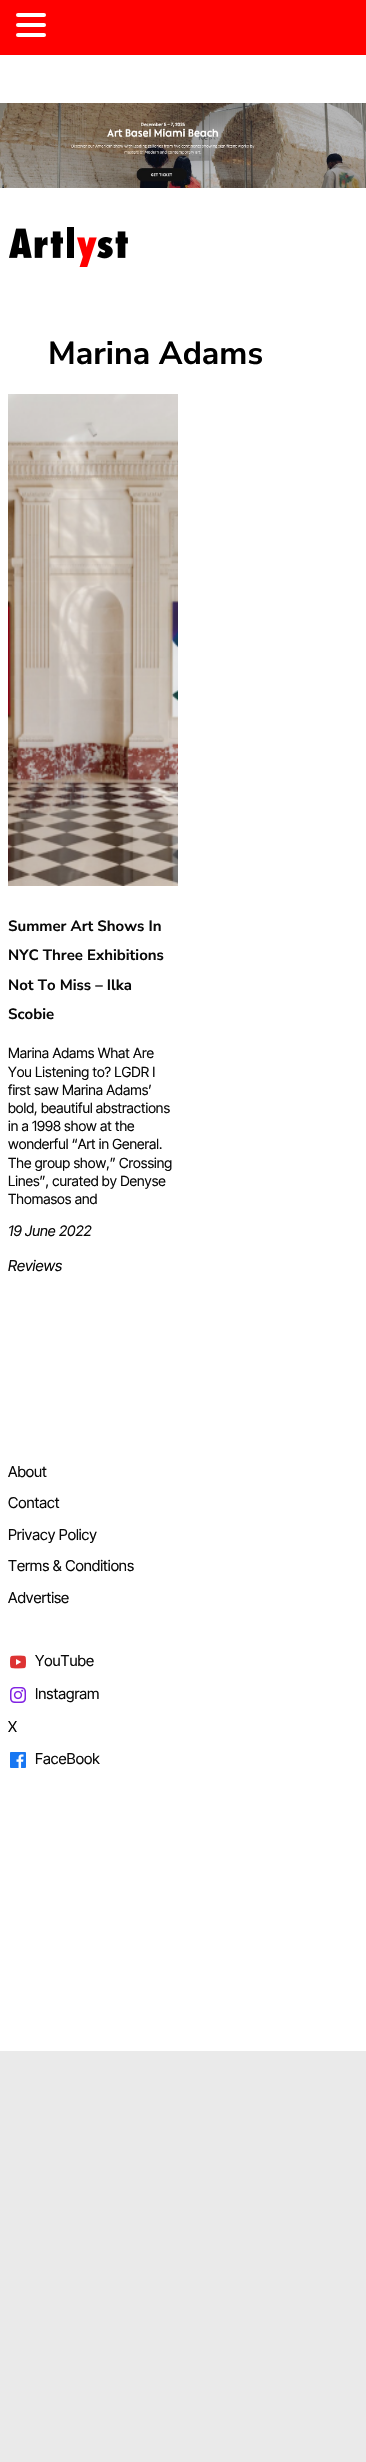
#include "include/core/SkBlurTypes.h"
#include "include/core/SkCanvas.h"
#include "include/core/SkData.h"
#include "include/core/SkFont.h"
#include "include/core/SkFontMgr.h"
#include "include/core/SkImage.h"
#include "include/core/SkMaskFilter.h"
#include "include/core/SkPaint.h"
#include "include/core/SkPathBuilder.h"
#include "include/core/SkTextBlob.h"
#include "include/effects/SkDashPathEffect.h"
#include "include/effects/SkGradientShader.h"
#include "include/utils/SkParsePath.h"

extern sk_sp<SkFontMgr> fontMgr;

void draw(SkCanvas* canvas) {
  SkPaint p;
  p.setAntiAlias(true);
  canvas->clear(SkColorSetRGB(234, 234, 234));
  p.setColor(SK_ColorWHITE);
  canvas->drawRect(SkRect::MakeLTRB(0, 55, 366, 2051), p);
  p.setColor(SkColorSetRGB(255, 0, 0));
  canvas->drawRect(SkRect::MakeLTRB(0, 0, 366, 55), p);
  p.setColor(SK_ColorWHITE);
  canvas->drawRoundRect(SkRect::MakeLTRB(16, 13, 46, 17), 2, 2, p);
  canvas->drawRoundRect(SkRect::MakeLTRB(16, 23, 46, 27), 2, 2, p);
  canvas->drawRoundRect(SkRect::MakeLTRB(16, 33, 46, 37), 2, 2, p);
  canvas->drawImageRect(SkImages::DeferredFromEncodedData(SkData::MakeFromFileName("images/1.png")), SkRect::MakeLTRB(0, 103, 366, 188), SkSamplingOptions());
  canvas->drawImageRect(SkImages::DeferredFromEncodedData(SkData::MakeFromFileName("images/2.png")), SkRect::MakeLTRB(9, 227, 128, 267), SkSamplingOptions());
  canvas->drawImageRect(SkImages::DeferredFromEncodedData(SkData::MakeFromFileName("images/3.png")), SkRect::MakeLTRB(8, 394, 178, 886), SkSamplingOptions());
  canvas->drawImageRect(SkImages::DeferredFromEncodedData(SkData::MakeFromFileName("images/4.png")), SkRect::MakeLTRB(10, 1655, 26, 1669), SkSamplingOptions());
  canvas->drawImageRect(SkImages::DeferredFromEncodedData(SkData::MakeFromFileName("images/5.png")), SkRect::MakeLTRB(10, 1687, 26, 1703), SkSamplingOptions());
  canvas->drawImageRect(SkImages::DeferredFromEncodedData(SkData::MakeFromFileName("images/6.png")), SkRect::MakeLTRB(10, 1752, 26, 1768), SkSamplingOptions());
  SkFont font1(fontMgr->matchFamilyStyle("Nunito Sans", SkFontStyle::Bold()), 32);
  font1.setSubpixel(true);
  p.setColor(SK_ColorBLACK);
  canvas->drawString("Marina Adams", 48, 364, font1, p);
  SkFont font2(fontMgr->matchFamilyStyle("Nunito Sans", SkFontStyle::Bold()), 15);
  font2.setSubpixel(true);
  p.setColor(SkColorSetRGB(10, 10, 10));
  canvas->drawString("Summer Art Shows In", 8, 931, font2, p);
  canvas->drawString("NYC Three Exhibitions", 8, 960, font2, p);
  canvas->drawString("Not To Miss – Ilka", 8, 990, font2, p);
  canvas->drawString("Scobie", 8, 1019, font2, p);
  SkFont font3(fontMgr->matchFamilyStyle("Inter Tight", SkFontStyle::Normal()), 14);
  font3.setSubpixel(true);
  canvas->drawString("Marina Adams What Are", 8, 1058, font3, p);
  canvas->drawString("You Listening to? LGDR I", 8, 1077, font3, p);
  canvas->drawString("first saw Marina Adams’", 8, 1095, font3, p);
  canvas->drawString("bold, beautiful abstractions", 8, 1113, font3, p);
  canvas->drawString("in a 1998 show at the", 8, 1131, font3, p);
  canvas->drawString("wonderful “Art in General.", 8, 1149, font3, p);
  canvas->drawString("The group show,” Crossing", 8, 1168, font3, p);
  canvas->drawString("Lines”, curated by Denyse", 8, 1186, font3, p);
  canvas->drawString("Thomasos and", 8, 1204, font3, p);
  SkFont font4(fontMgr->matchFamilyStyle("Inter Tight", SkFontStyle::Italic()), 14.5f);
  font4.setSubpixel(true);
  canvas->drawString("19 June 2022", 8, 1236, font4, p);
  SkFont font5(fontMgr->matchFamilyStyle("Inter Tight", SkFontStyle::Italic()), 15);
  font5.setSubpixel(true);
  canvas->drawString("Reviews", 8, 1271, font5, p);
  SkFont font6(fontMgr->matchFamilyStyle("Inter Tight", SkFontStyle::Normal()), 15);
  font6.setSubpixel(true);
  canvas->drawString("About", 8, 1477, font6, p);
  canvas->drawString("Contact", 8, 1508, font6, p);
  canvas->drawString("Privacy Policy", 8, 1540, font6, p);
  canvas->drawString("Terms & Conditions", 8, 1571, font6, p);
  canvas->drawString("Advertise", 8, 1603, font6, p);
  canvas->drawString("YouTube", 35, 1666, font6, p);
  canvas->drawString("Instagram", 35, 1699, font6, p);
  canvas->drawString("X", 8, 1732, font6, p);
  canvas->drawString("FaceBook", 35, 1764, font6, p);
}
